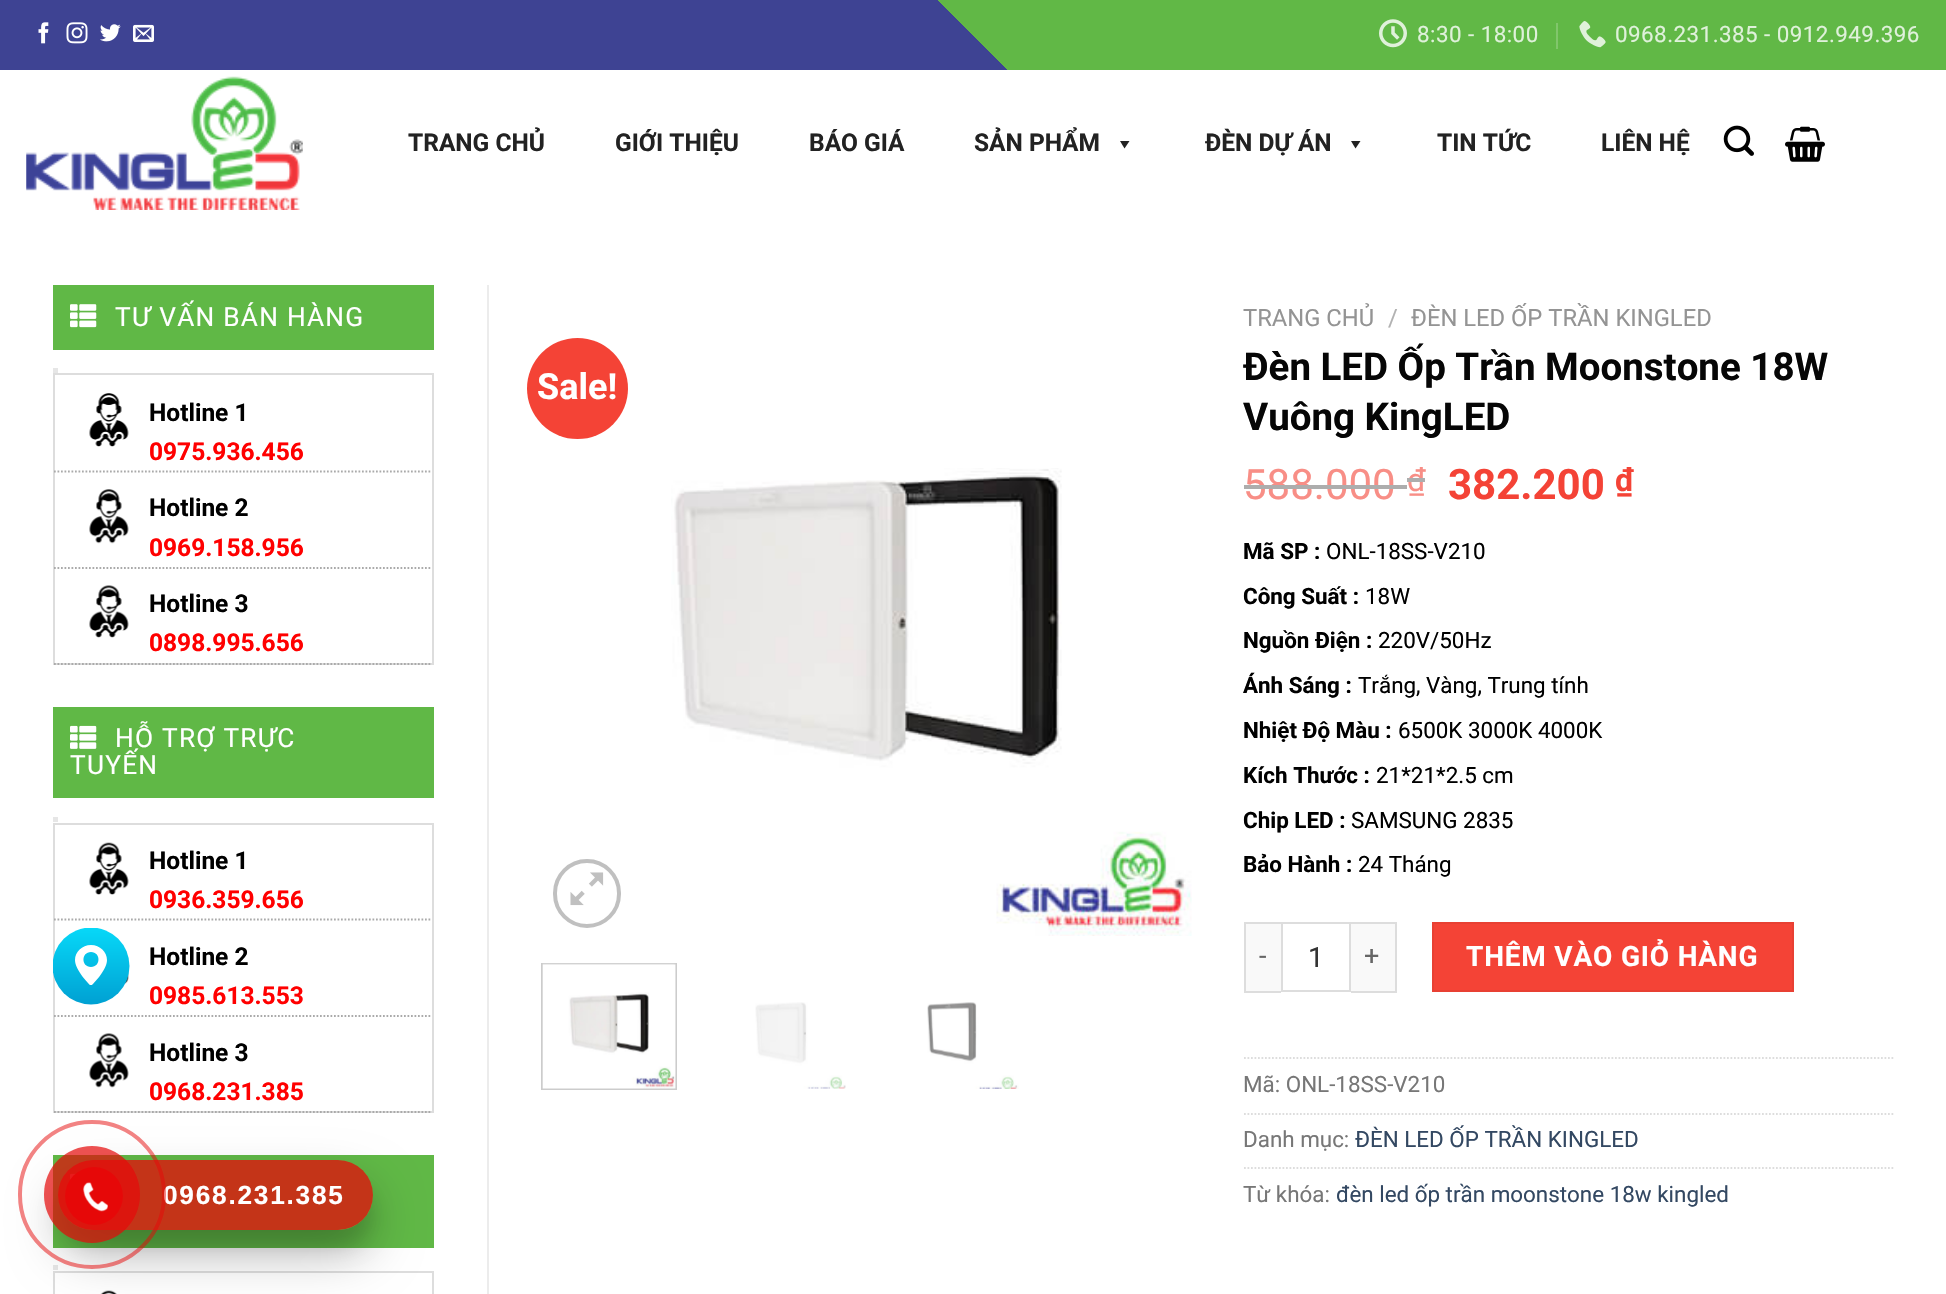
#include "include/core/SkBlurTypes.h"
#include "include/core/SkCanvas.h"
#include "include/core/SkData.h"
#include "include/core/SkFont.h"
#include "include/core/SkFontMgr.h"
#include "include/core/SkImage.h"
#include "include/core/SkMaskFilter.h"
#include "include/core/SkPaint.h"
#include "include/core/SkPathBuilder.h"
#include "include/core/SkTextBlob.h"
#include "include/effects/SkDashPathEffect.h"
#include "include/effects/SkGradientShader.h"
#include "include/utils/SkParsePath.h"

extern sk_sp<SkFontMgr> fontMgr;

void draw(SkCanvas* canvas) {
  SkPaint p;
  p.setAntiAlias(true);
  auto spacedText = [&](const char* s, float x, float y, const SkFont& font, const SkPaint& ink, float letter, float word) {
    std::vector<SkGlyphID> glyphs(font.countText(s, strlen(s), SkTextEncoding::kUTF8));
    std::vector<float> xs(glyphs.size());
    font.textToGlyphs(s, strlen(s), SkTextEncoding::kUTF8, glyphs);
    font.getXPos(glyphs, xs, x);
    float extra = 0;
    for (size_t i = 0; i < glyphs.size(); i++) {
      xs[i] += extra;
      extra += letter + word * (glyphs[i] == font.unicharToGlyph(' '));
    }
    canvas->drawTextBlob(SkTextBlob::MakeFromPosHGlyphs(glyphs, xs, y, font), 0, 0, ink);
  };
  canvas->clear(SK_ColorWHITE);
  {
    const SkColor colors[] = {SkColorSetRGB(62, 67, 147), SkColorSetRGB(97, 184, 70)};
    const float stops[] = {0.5f, 0.5f};
    const SkPoint ends[] = {{469, 539}, {1477, -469}};
    p.setShader(SkGradientShader::MakeLinear(ends, colors, stops, 2, SkTileMode::kClamp));
    p.setAlpha(255);
  }
  canvas->drawRect(SkRect::MakeLTRB(0, 0, 1946, 70), p);
  canvas->drawImageRect(SkImages::DeferredFromEncodedData(SkData::MakeFromFileName("images/1.png")), SkRect::MakeLTRB(38, 22, 49, 44), SkSamplingOptions());
  canvas->drawImageRect(SkImages::DeferredFromEncodedData(SkData::MakeFromFileName("images/2.png")), SkRect::MakeLTRB(66, 22, 88, 44), SkSamplingOptions());
  canvas->drawImageRect(SkImages::DeferredFromEncodedData(SkData::MakeFromFileName("images/3.png")), SkRect::MakeLTRB(100, 24, 121, 42), SkSamplingOptions());
  canvas->drawImageRect(SkImages::DeferredFromEncodedData(SkData::MakeFromFileName("images/4.png")), SkRect::MakeLTRB(133, 24, 154, 42), SkSamplingOptions());
  canvas->drawImageRect(SkImages::DeferredFromEncodedData(SkData::MakeFromFileName("images/5.png")), SkRect::MakeLTRB(1379, 19, 1407, 48), SkSamplingOptions());
  p.setShader(nullptr);
  p.setColor(SkColorSetRGB(129, 198, 107));
  canvas->drawRect(SkRect::MakeLTRB(1556, 23, 1558, 49), p);
  canvas->drawImageRect(SkImages::DeferredFromEncodedData(SkData::MakeFromFileName("images/6.png")), SkRect::MakeLTRB(1579, 21, 1606, 48), SkSamplingOptions());
  canvas->drawImageRect(SkImages::DeferredFromEncodedData(SkData::MakeFromFileName("images/7.png")), SkRect::MakeLTRB(26, 76, 303, 210), SkSamplingOptions());
  p.setColor(SkColorSetRGB(34, 34, 34));
  canvas->drawPath(SkPathBuilder().moveTo(1129.5f, 141).lineTo(1124.5f, 148.5f).lineTo(1120, 141).close().detach(), p);
  canvas->drawPath(SkPathBuilder().moveTo(1360.5f, 141).lineTo(1355.5f, 148.5f).lineTo(1351, 141).close().detach(), p);
  canvas->drawImageRect(SkImages::DeferredFromEncodedData(SkData::MakeFromFileName("images/8.png")), SkRect::MakeLTRB(1723, 125, 1754, 156), SkSamplingOptions());
  canvas->drawImageRect(SkImages::DeferredFromEncodedData(SkData::MakeFromFileName("images/9.png")), SkRect::MakeLTRB(1785, 126, 1825, 162), SkSamplingOptions());
  p.setColor(SkColorSetRGB(96, 184, 70));
  canvas->drawRect(SkRect::MakeLTRB(53, 285, 434, 350), p);
  canvas->drawImageRect(SkImages::DeferredFromEncodedData(SkData::MakeFromFileName("images/10.png")), SkRect::MakeLTRB(70, 304, 97, 328), SkSamplingOptions());
  p.setColor(SkColorSetRGB(230, 230, 230));
  canvas->drawRect(SkRect::MakeLTRB(53, 368, 58, 373), p);
  p.setStyle(SkPaint::kStroke_Style);
  p.setStrokeWidth(2);
  p.setColor(SkColorSetRGB(221, 221, 221));
  canvas->drawRect(SkRect::MakeLTRB(54, 374, 433, 664), p);
  p.setStrokeWidth(1.8f);
  p.setColor(SkColorSetRGB(170, 170, 170));
  p.setPathEffect(SkDashPathEffect::Make({{1.75f, 1.75f}}, 0));
  canvas->drawPath(SkPathBuilder().moveTo(54, 471.5f).lineTo(432, 471.5f).detach(), p);
  p.setPathEffect(nullptr);
  canvas->drawImageRect(SkImages::DeferredFromEncodedData(SkData::MakeFromFileName("images/11.png")), SkRect::MakeLTRB(89, 393, 129, 447), SkSamplingOptions());
  p.setPathEffect(SkDashPathEffect::Make({{1.75f, 1.75f}}, 0));
  canvas->drawPath(SkPathBuilder().moveTo(54, 568).lineTo(432, 568).detach(), p);
  p.setPathEffect(nullptr);
  canvas->drawImageRect(SkImages::DeferredFromEncodedData(SkData::MakeFromFileName("images/12.png")), SkRect::MakeLTRB(89, 489, 129, 544), SkSamplingOptions());
  p.setPathEffect(SkDashPathEffect::Make({{1.75f, 1.75f}}, 0));
  canvas->drawPath(SkPathBuilder().moveTo(54, 664).lineTo(432, 664).detach(), p);
  p.setPathEffect(nullptr);
  canvas->drawImageRect(SkImages::DeferredFromEncodedData(SkData::MakeFromFileName("images/13.png")), SkRect::MakeLTRB(89, 585, 129, 638), SkSamplingOptions());
  p.setStyle(SkPaint::kFill_Style);
  p.setColor(SkColorSetRGB(96, 184, 70));
  canvas->drawRect(SkRect::MakeLTRB(53, 707, 434, 798), p);
  canvas->drawImageRect(SkImages::DeferredFromEncodedData(SkData::MakeFromFileName("images/14.png")), SkRect::MakeLTRB(70, 725, 97, 749), SkSamplingOptions());
  p.setColor(SkColorSetRGB(230, 230, 230));
  canvas->drawRect(SkRect::MakeLTRB(53, 817, 58, 822), p);
  p.setStyle(SkPaint::kStroke_Style);
  p.setStrokeWidth(2);
  p.setColor(SkColorSetRGB(221, 221, 221));
  canvas->drawRect(SkRect::MakeLTRB(54, 824, 433, 1112), p);
  p.setStrokeWidth(1.8f);
  p.setColor(SkColorSetRGB(170, 170, 170));
  p.setPathEffect(SkDashPathEffect::Make({{1.75f, 1.75f}}, 0));
  canvas->drawPath(SkPathBuilder().moveTo(54, 919.5f).lineTo(432, 919.5f).detach(), p);
  p.setPathEffect(nullptr);
  canvas->drawImageRect(SkImages::DeferredFromEncodedData(SkData::MakeFromFileName("images/15.png")), SkRect::MakeLTRB(89, 842, 129, 895), SkSamplingOptions());
  p.setPathEffect(SkDashPathEffect::Make({{1.75f, 1.75f}}, 0));
  canvas->drawPath(SkPathBuilder().moveTo(54, 1016).lineTo(432, 1016).detach(), p);
  p.setPathEffect(nullptr);
  canvas->drawImageRect(SkImages::DeferredFromEncodedData(SkData::MakeFromFileName("images/16.png")), SkRect::MakeLTRB(124, 974, 129, 985), SkSamplingOptions());
  p.setPathEffect(SkDashPathEffect::Make({{1.75f, 1.75f}}, 0));
  canvas->drawPath(SkPathBuilder().moveTo(54, 1112).lineTo(432, 1112).detach(), p);
  p.setPathEffect(nullptr);
  canvas->drawImageRect(SkImages::DeferredFromEncodedData(SkData::MakeFromFileName("images/17.png")), SkRect::MakeLTRB(89, 1033, 129, 1088), SkSamplingOptions());
  p.setStyle(SkPaint::kFill_Style);
  p.setColor(SkColorSetRGB(96, 184, 70));
  canvas->drawRect(SkRect::MakeLTRB(53, 1155, 434, 1248), p);
  canvas->drawImageRect(SkImages::DeferredFromEncodedData(SkData::MakeFromFileName("images/18.png")), SkRect::MakeLTRB(70, 1173, 77, 1180), SkSamplingOptions());
  p.setColor(SkColorSetRGB(230, 230, 230));
  canvas->drawRect(SkRect::MakeLTRB(53, 1265, 58, 1270), p);
  p.setStyle(SkPaint::kStroke_Style);
  p.setStrokeWidth(2);
  p.setColor(SkColorSetRGB(221, 221, 221));
  canvas->drawRect(SkRect::MakeLTRB(54, 1272, 433, 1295), p);
  canvas->drawImageRect(SkImages::DeferredFromEncodedData(SkData::MakeFromFileName("images/19.png")), SkRect::MakeLTRB(100, 1290, 117, 1294), SkSamplingOptions());
  p.setStyle(SkPaint::kFill_Style);
  p.setColor(SkColorSetRGB(236, 236, 236));
  canvas->drawRect(SkRect::MakeLTRB(487, 285, 489, 1294), p);
  p.setColor(SkColorSetRGB(244, 67, 54));
  canvas->drawCircle(577.5f, 388.5f, 50.5f, p);
  p.setStyle(SkPaint::kStroke_Style);
  p.setStrokeWidth(4);
  p.setColor(SkColorSetRGB(192, 192, 192));
  canvas->drawRoundRect(SkRect::MakeLTRB(555, 861, 619, 926), 32, 32, p);
  canvas->drawImageRect(SkImages::DeferredFromEncodedData(SkData::MakeFromFileName("images/20.png")), SkRect::MakeLTRB(570, 872, 604, 906), SkSamplingOptions());
  canvas->drawImageRect(SkImages::DeferredFromEncodedData(SkData::MakeFromFileName("images/21.png")), SkRect::MakeLTRB(671, 468, 1192, 936), SkSamplingOptions());
  p.setStrokeWidth(2);
  p.setColor(SkColorSetRGB(204, 204, 204));
  canvas->drawRect(SkRect::MakeLTRB(542, 964, 676, 1089), p);
  canvas->drawImageRect(SkImages::DeferredFromEncodedData(SkData::MakeFromFileName("images/22.png")), SkRect::MakeLTRB(542, 963, 676, 1089), SkSamplingOptions());
  canvas->drawImageRect(SkImages::DeferredFromEncodedData(SkData::MakeFromFileName("images/23.png")), SkRect::MakeLTRB(755, 1002, 846, 1089), SkSamplingOptions());
  canvas->drawImageRect(SkImages::DeferredFromEncodedData(SkData::MakeFromFileName("images/24.png")), SkRect::MakeLTRB(927, 1002, 1019, 1089), SkSamplingOptions());
  p.setStyle(SkPaint::kFill_Style);
  p.setColor(SkColorSetRGB(249, 249, 249));
  canvas->drawRect(SkRect::MakeLTRB(1246, 924, 1281, 991), p);
  p.setColor(SkColorSetRGB(221, 221, 221));
  canvas->drawRect(SkRect::MakeLTRB(1244, 922, 1281, 924), p);
  canvas->drawRect(SkRect::MakeLTRB(1244, 991, 1281, 993), p);
  canvas->drawRect(SkRect::MakeLTRB(1244, 922, 1246, 992), p);
  p.setStyle(SkPaint::kStroke_Style);
  canvas->drawRect(SkRect::MakeLTRB(1282, 923, 1350, 991), p);
  p.setStyle(SkPaint::kFill_Style);
  p.setColor(SkColorSetRGB(249, 249, 249));
  canvas->drawRect(SkRect::MakeLTRB(1351, 924, 1395, 991), p);
  p.setColor(SkColorSetRGB(221, 221, 221));
  canvas->drawRect(SkRect::MakeLTRB(1351, 922, 1397, 924), p);
  canvas->drawRect(SkRect::MakeLTRB(1395, 922, 1397, 992), p);
  canvas->drawRect(SkRect::MakeLTRB(1351, 991, 1397, 993), p);
  p.setColor(SkColorSetRGB(244, 67, 54));
  canvas->drawRect(SkRect::MakeLTRB(1433, 923, 1793, 991), p);
  p.setStyle(SkPaint::kStroke_Style);
  p.setColor(SkColorSetRGB(232, 64, 51));
  canvas->drawRect(SkRect::MakeLTRB(1433, 923, 1793, 991), p);
  p.setStrokeWidth(1.8f);
  p.setColor(SkColorSetRGB(221, 221, 221));
  p.setPathEffect(SkDashPathEffect::Make({{1.75f, 1.75f}}, 0));
  canvas->drawPath(SkPathBuilder().moveTo(1244, 1058).lineTo(1893.5f, 1058).detach(), p);
  p.setPathEffect(nullptr);
  p.setPathEffect(SkDashPathEffect::Make({{1.75f, 1.75f}}, 0));
  canvas->drawPath(SkPathBuilder().moveTo(1244, 1114).lineTo(1893.5f, 1114).detach(), p);
  p.setPathEffect(nullptr);
  p.setPathEffect(SkDashPathEffect::Make({{1.75f, 1.75f}}, 0));
  canvas->drawPath(SkPathBuilder().moveTo(1244, 1168).lineTo(1893.5f, 1168).detach(), p);
  p.setPathEffect(nullptr);
  canvas->save();
  canvas->clipRect(SkRect::MakeLTRB(53, 928, 130, 1005));
  p.setStyle(SkPaint::kFill_Style);
  {
    const SkColor colors[] = {SkColorSetRGB(7, 216, 248), SkColorSetRGB(0, 160, 210)};
    const float stops[] = {0, 1};
    const SkPoint ends[] = {{91, 928}, {91, 1005}};
    p.setShader(SkGradientShader::MakeLinear(ends, colors, stops, 2, SkTileMode::kClamp));
    p.setAlpha(255);
  }
  canvas->drawCircle(91, 966, 38.5f, p);
  canvas->restore();
  p.setShader(nullptr);
  p.setColor(SK_ColorWHITE);
  canvas->drawPath(SkPathBuilder().moveTo(91, 945).cubicTo(82, 945, 75, 952, 75, 960).cubicTo(75, 970, 89, 984, 90, 985).cubicTo(91, 985, 91, 985, 92, 985).cubicTo(93, 984, 107, 970, 107, 960).cubicTo(107, 952, 100, 945, 91, 945).close().moveTo(91, 967).cubicTo(81, 967, 81, 952, 91, 952).cubicTo(101, 952, 101, 967, 91, 967).close().detach(), p);
  canvas->save();
  canvas->clipPath(SkPathBuilder(SkPathFillType::kEvenOdd).moveTo(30, 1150).lineTo(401, 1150).lineTo(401, 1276).lineTo(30, 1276).close().moveTo(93, 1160).lineTo(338, 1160).cubicTo(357.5f, 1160, 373, 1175.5f, 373, 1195).cubicTo(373, 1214.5f, 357.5f, 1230, 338, 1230).lineTo(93, 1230).cubicTo(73.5f, 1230, 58, 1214.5f, 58, 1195).cubicTo(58, 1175.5f, 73.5f, 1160, 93, 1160).close().detach(), true);
  p.setColor(SkColorSetARGB(26, 0, 0, 0));
  p.setMaskFilter(SkMaskFilter::MakeBlur(kNormal_SkBlurStyle, 9));
  canvas->drawRoundRect(SkRect::MakeLTRB(58, 1178, 373, 1248), 35, 35, p);
  p.setMaskFilter(nullptr);
  canvas->restore();
  canvas->save();
  canvas->clipPath(SkPathBuilder(SkPathFillType::kEvenOdd).moveTo(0, 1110).lineTo(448, 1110).lineTo(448, 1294).lineTo(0, 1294).close().moveTo(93, 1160).lineTo(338, 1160).cubicTo(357.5f, 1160, 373, 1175.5f, 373, 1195).cubicTo(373, 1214.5f, 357.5f, 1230, 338, 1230).lineTo(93, 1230).cubicTo(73.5f, 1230, 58, 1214.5f, 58, 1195).cubicTo(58, 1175.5f, 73.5f, 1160, 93, 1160).close().detach(), true);
  p.setColor(SkColorSetARGB(64, 0, 0, 0));
  p.setMaskFilter(SkMaskFilter::MakeBlur(kNormal_SkBlurStyle, 24.5f));
  canvas->drawRoundRect(SkRect::MakeLTRB(58, 1185, 373, 1255), 35, 35, p);
  p.setMaskFilter(nullptr);
  canvas->restore();
  p.setColor(SkColorSetARGB(191, 230, 8, 8));
  canvas->drawRoundRect(SkRect::MakeLTRB(58, 1160, 373, 1230), 35, 35, p);
  SkFont font1(fontMgr->matchFamilyStyle("Roboto", SkFontStyle::Normal()), 22.4f);
  font1.setSubpixel(true);
  p.setColor(SkColorSetRGB(223, 241, 218));
  spacedText("8:30 - 18:00", 1417, 42, font1, p, 0.45f, 0);
  spacedText("0968.231.385 - 0912.949.396", 1615, 42, font1, p, 0.45f, 0);
  SkFont font2(fontMgr->matchFamilyStyle("Roboto", SkFontStyle::Bold()), 24.5f);
  font2.setSubpixel(true);
  p.setColor(SkColorSetRGB(34, 34, 34));
  canvas->drawString("TRANG CHỦ", 408, 151, font2, p);
  canvas->drawString("GIỚI THIỆU", 615, 151, font2, p);
  canvas->drawString("BÁO GIÁ", 809, 151, font2, p);
  canvas->drawString("SẢN PHẨM", 974, 151, font2, p);
  canvas->drawString("ĐÈN DỰ ÁN", 1205, 151, font2, p);
  canvas->drawString("TIN TỨC", 1437, 151, font2, p);
  canvas->drawString("LIÊN HỆ", 1601, 151, font2, p);
  SkFont font3(fontMgr->matchFamilyStyle("Roboto", SkFontStyle::Normal()), 26.25f);
  font3.setSubpixel(true);
  p.setColor(SK_ColorWHITE);
  spacedText("TƯ VẤN BÁN HÀNG", 115, 326, font3, p, 1.25f, 0);
  p.setColor(SK_ColorBLACK);
  canvas->drawString("Hotline 1", 149, 421, font2, p);
  p.setColor(SkColorSetRGB(255, 0, 0));
  canvas->drawString("0975.936.456", 149, 460, font2, p);
  p.setColor(SK_ColorBLACK);
  canvas->drawString("Hotline 2", 149, 516, font2, p);
  p.setColor(SkColorSetRGB(255, 0, 0));
  canvas->drawString("0969.158.956", 149, 556, font2, p);
  p.setColor(SK_ColorBLACK);
  canvas->drawString("Hotline 3", 149, 612, font2, p);
  p.setColor(SkColorSetRGB(255, 0, 0));
  canvas->drawString("0898.995.656", 149, 651, font2, p);
  p.setColor(SK_ColorWHITE);
  spacedText("HỖ TRỢ TRỰC", 115, 747, font3, p, 1.25f, 0);
  spacedText("TUYẾN", 70, 774, font3, p, 1.25f, 0);
  p.setColor(SK_ColorBLACK);
  canvas->drawString("Hotline 1", 149, 869, font2, p);
  p.setColor(SkColorSetRGB(255, 0, 0));
  canvas->drawString("0936.359.656", 149, 908, font2, p);
  p.setColor(SK_ColorBLACK);
  canvas->drawString("Hotline 2", 149, 965, font2, p);
  p.setColor(SkColorSetRGB(255, 0, 0));
  canvas->drawString("0985.613.553", 149, 1004, font2, p);
  p.setColor(SK_ColorBLACK);
  canvas->drawString("Hotline 3", 149, 1061, font2, p);
  p.setColor(SkColorSetRGB(255, 0, 0));
  canvas->drawString("0968.231.385", 149, 1100, font2, p);
  SkFont font4(fontMgr->matchFamilyStyle("Roboto", SkFontStyle::Bold()), 36);
  font4.setSubpixel(true);
  p.setColor(SK_ColorWHITE);
  canvas->drawString("Sale!", 537, 399, font4, p);
  SkFont font5(fontMgr->matchFamilyStyle("Roboto", SkFontStyle::Normal()), 23.75f);
  font5.setSubpixel(true);
  p.setColor(SkColorSetRGB(148, 148, 148));
  canvas->drawString("TRANG CHỦ", 1243, 326, font5, p);
  p.setColor(SkColorSetRGB(178, 178, 178));
  canvas->drawString("/", 1388, 326, font5, p);
  p.setColor(SkColorSetRGB(148, 148, 148));
  canvas->drawString("ĐÈN LED ỐP TRẦN KINGLED", 1411, 326, font5, p);
  SkFont font6(fontMgr->matchFamilyStyle("Roboto", SkFontStyle::Bold()), 38.5f);
  font6.setSubpixel(true);
  p.setColor(SkColorSetRGB(6, 6, 6));
  canvas->drawString("Đèn LED Ốp Trần Moonstone 18W", 1243, 380, font6, p);
  canvas->drawString("Vuông KingLED", 1243, 430, font6, p);
  SkFont font7(fontMgr->matchFamilyStyle("Roboto", SkFontStyle::Normal()), 42);
  font7.setSubpixel(true);
  p.setColor(SkColorSetRGB(248, 142, 134));
  canvas->drawString("588.000", 1243, 499, font7, p);
  p.setColor(SkColorSetRGB(173, 173, 173));
  canvas->drawRect(SkRect::MakeLTRB(1244, 485, 1407, 489), p);
  SkFont font8(fontMgr->matchFamilyStyle("Roboto", SkFontStyle::Normal()), 32);
  font8.setSubpixel(true);
  p.setColor(SkColorSetRGB(248, 142, 134));
  canvas->drawString("₫", 1407, 491, font8, p);
  p.setColor(SkColorSetRGB(173, 173, 173));
  canvas->drawRect(SkRect::MakeLTRB(1407, 478, 1425, 482), p);
  SkFont font9(fontMgr->matchFamilyStyle("Roboto", SkFontStyle::Bold()), 42);
  font9.setSubpixel(true);
  p.setColor(SkColorSetRGB(244, 67, 54));
  canvas->drawString("382.200", 1448, 499, font9, p);
  SkFont font10(fontMgr->matchFamilyStyle("Roboto", SkFontStyle::Bold()), 32);
  font10.setSubpixel(true);
  canvas->drawString("₫", 1615, 491, font10, p);
  SkFont font11(fontMgr->matchFamilyStyle("Roboto", SkFontStyle::Bold()), 22.4f);
  font11.setSubpixel(true);
  p.setColor(SK_ColorBLACK);
  canvas->drawString("Mã SP :", 1243, 559, font11, p);
  canvas->drawString("ONL-18SS-V210", 1326, 559, font1, p);
  canvas->drawString("Công Suất :", 1243, 604, font11, p);
  canvas->drawString("18W", 1365, 604, font1, p);
  canvas->drawString("Nguồn Điện :", 1243, 648, font11, p);
  canvas->drawString("220V/50Hz", 1378, 648, font1, p);
  canvas->drawString("Ánh Sáng :", 1243, 693, font11, p);
  canvas->drawString("Trắng, Vàng, Trung tính", 1358, 693, font1, p);
  canvas->drawString("Nhiệt Độ Màu :", 1243, 738, font11, p);
  canvas->drawString("6500K 3000K 4000K", 1398, 738, font1, p);
  canvas->drawString("Kích Thước :", 1243, 783, font11, p);
  canvas->drawString("21*21*2.5 cm", 1376, 783, font1, p);
  canvas->drawString("Chip LED :", 1243, 828, font11, p);
  canvas->drawString("SAMSUNG 2835", 1351, 828, font1, p);
  canvas->drawString("Bảo Hành :", 1243, 872, font11, p);
  canvas->drawString("24 Tháng", 1358, 872, font1, p);
  SkFont font12(fontMgr->matchFamilyStyle("Roboto", SkFontStyle::Normal()), 27);
  font12.setSubpixel(true);
  p.setColor(SkColorSetRGB(102, 102, 102));
  spacedText("-", 1259, 965, font12, p, 1, 0);
  SkFont font13(fontMgr->matchFamilyStyle("Roboto", SkFontStyle::Normal()), 28);
  font13.setSubpixel(true);
  p.setColor(SkColorSetRGB(51, 51, 51));
  canvas->drawString("1", 1308, 967, font13, p);
  p.setColor(SkColorSetRGB(102, 102, 102));
  spacedText("+", 1364, 965, font12, p, 1, 0);
  SkFont font14(fontMgr->matchFamilyStyle("Roboto", SkFontStyle::Bold()), 28);
  font14.setSubpixel(true);
  p.setColor(SK_ColorWHITE);
  spacedText("THÊM VÀO GIỎ HÀNG", 1466, 966, font14, p, 0.8f, 0);
  p.setColor(SkColorSetRGB(119, 119, 119));
  canvas->drawString("Mã: ONL-18SS-V210", 1243, 1092, font1, p);
  canvas->drawString("Danh mục:", 1243, 1147, font1, p);
  p.setColor(SkColorSetRGB(51, 72, 98));
  canvas->drawString("ĐÈN LED ỐP TRẦN KINGLED", 1355, 1147, font1, p);
  p.setColor(SkColorSetRGB(119, 119, 119));
  canvas->drawString("Từ khóa:", 1243, 1202, font1, p);
  p.setColor(SkColorSetRGB(51, 72, 98));
  canvas->drawString("đèn led ốp trần moonstone 18w kingled", 1336, 1202, font1, p);
  SkFont font15(fontMgr->matchFamilyStyle("Liberation Sans", SkFontStyle::Bold()), 26.25f);
  font15.setSubpixel(true);
  p.setColor(SK_ColorWHITE);
  spacedText("0968.231.385", 163, 1204, font15, p, 1.75f, 0);
  p.setStyle(SkPaint::kStroke_Style);
  p.setStrokeWidth(4);
  p.setColor(SkColorSetARGB(128, 230, 8, 8));
  canvas->drawRoundRect(SkRect::MakeLTRB(20, 1122, 164, 1267), 72, 72, p);
  p.setStyle(SkPaint::kFill_Style);
  p.setColor(SkColorSetARGB(179, 230, 8, 8));
  canvas->drawRoundRect(SkRect::MakeLTRB(44, 1146, 140, 1243), 48, 48, p);
  p.setColor(SkColorSetRGB(230, 8, 8));
  canvas->drawCircle(94, 1196, 29, p);
  canvas->drawImageRect(SkImages::DeferredFromEncodedData(SkData::MakeFromFileName("images/25.png")), SkRect::MakeLTRB(83, 1182, 108, 1212), SkSamplingOptions());
}
